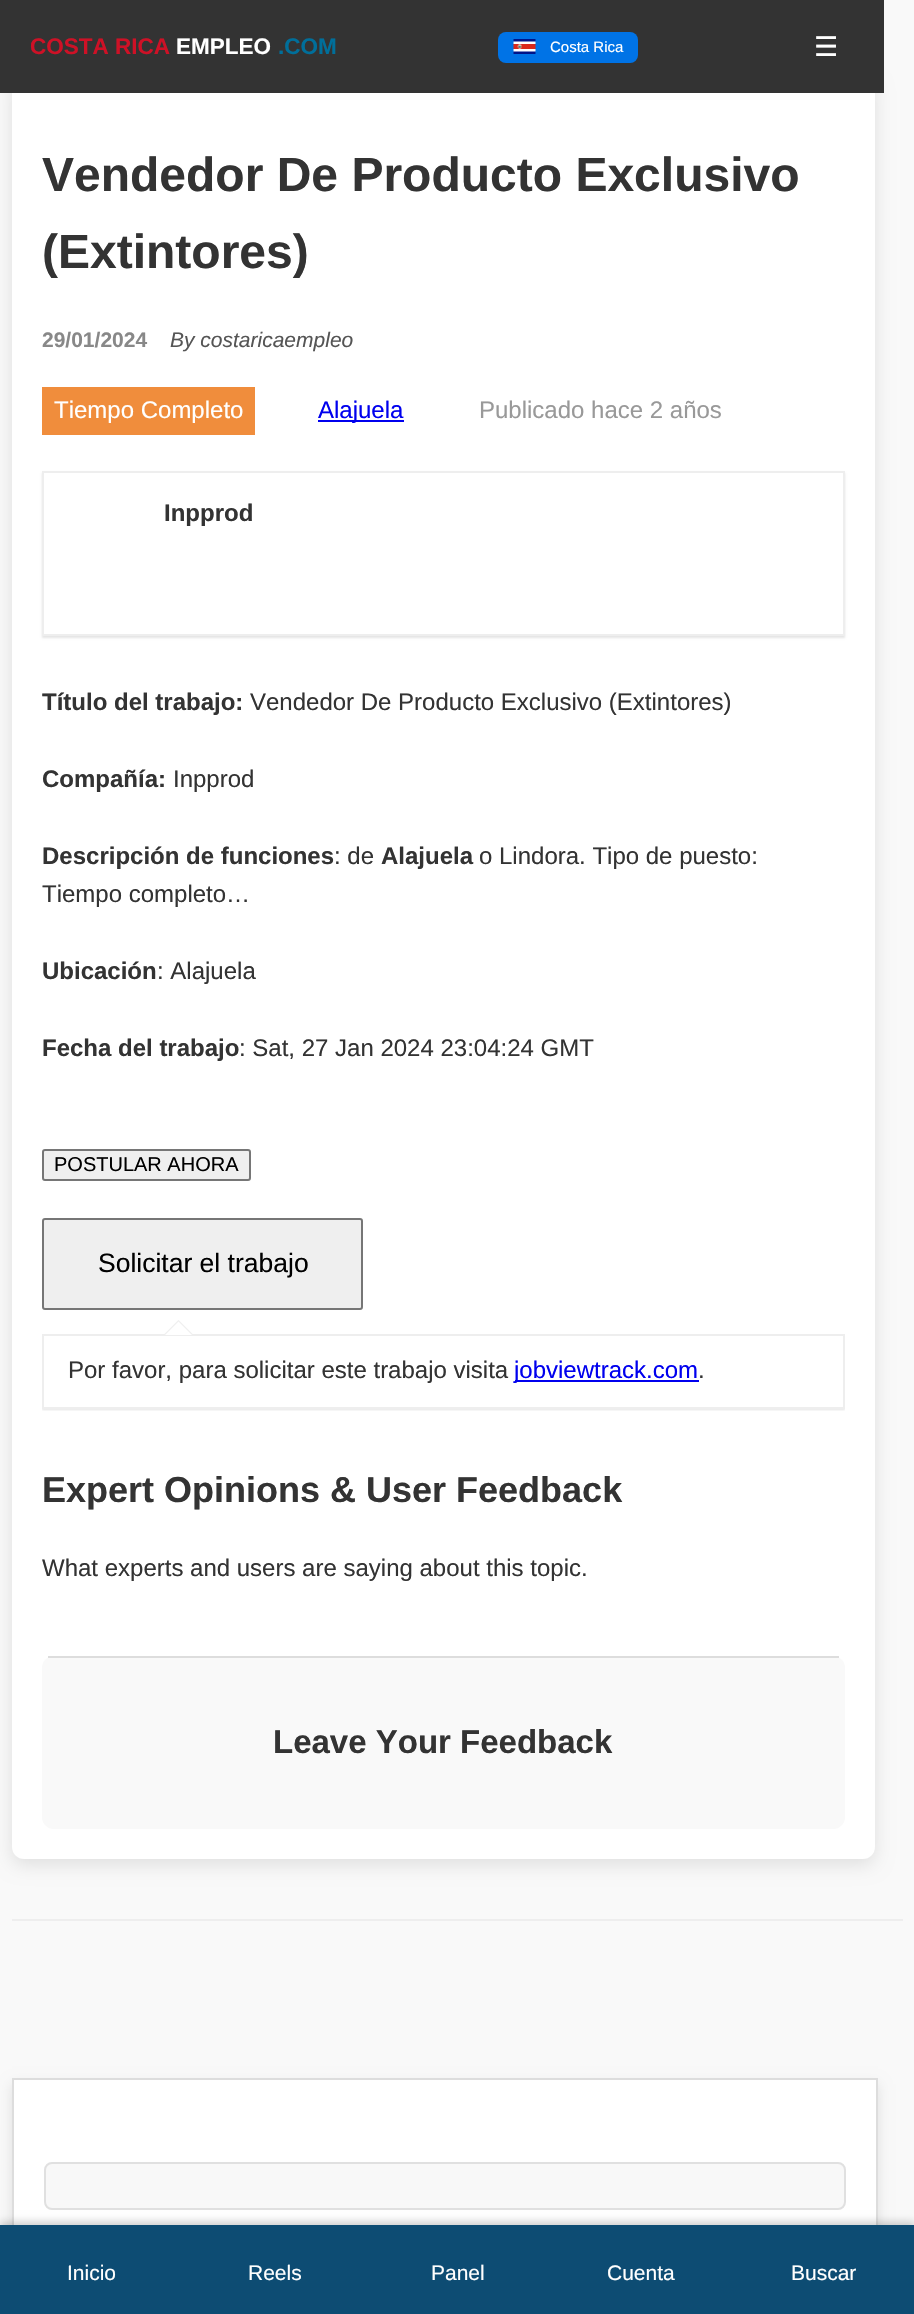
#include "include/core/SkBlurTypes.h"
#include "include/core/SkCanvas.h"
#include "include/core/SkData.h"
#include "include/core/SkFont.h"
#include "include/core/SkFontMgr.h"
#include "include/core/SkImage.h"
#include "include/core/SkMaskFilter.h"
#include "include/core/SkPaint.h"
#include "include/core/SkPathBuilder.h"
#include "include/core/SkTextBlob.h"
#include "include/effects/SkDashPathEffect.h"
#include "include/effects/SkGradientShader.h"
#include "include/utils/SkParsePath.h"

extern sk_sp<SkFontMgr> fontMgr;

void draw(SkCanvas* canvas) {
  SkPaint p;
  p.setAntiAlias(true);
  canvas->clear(SkColorSetRGB(249, 249, 249));
  p.setColor(SkColorSetARGB(26, 0, 0, 0));
  p.setMaskFilter(SkMaskFilter::MakeBlur(kNormal_SkBlurStyle, 9));
  canvas->drawRoundRect(SkRect::MakeLTRB(12, 81, 875, 1865), 12, 12, p);
  p.setMaskFilter(nullptr);
  p.setColor(SK_ColorWHITE);
  canvas->drawRoundRect(SkRect::MakeLTRB(12, 75, 875, 1859), 12, 12, p);
  p.setColor(SkColorSetRGB(51, 51, 51));
  canvas->drawRect(SkRect::MakeLTRB(0, 0, 884, 93), p);
  p.setColor(SkColorSetRGB(0, 115, 230));
  canvas->drawRoundRect(SkRect::MakeLTRB(498, 32, 638, 63), 8, 8, p);
  canvas->drawImageRect(SkImages::DeferredFromEncodedData(SkData::MakeFromFileName("images/1.png")), SkRect::MakeLTRB(513, 39, 536, 54), SkSamplingOptions());
  p.setColor(SkColorSetRGB(240, 141, 60));
  canvas->drawRect(SkRect::MakeLTRB(42, 387, 255, 435), p);
  p.setColor(SkColorSetRGB(0, 0, 238));
  canvas->drawRect(SkRect::MakeLTRB(318, 420, 404, 422), p);
  canvas->save();
  canvas->clipPath(SkPathBuilder(SkPathFillType::kEvenOdd).moveTo(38, 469).lineTo(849, 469).lineTo(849, 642).lineTo(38, 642).close().moveTo(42, 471).lineTo(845, 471).lineTo(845, 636).lineTo(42, 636).close().detach(), true);
  p.setColor(SkColorSetARGB(26, 0, 0, 0));
  p.setMaskFilter(SkMaskFilter::MakeBlur(kNormal_SkBlurStyle, 1));
  canvas->drawRect(SkRect::MakeLTRB(42, 473, 845, 638), p);
  p.setMaskFilter(nullptr);
  canvas->restore();
  p.setStyle(SkPaint::kStroke_Style);
  p.setStrokeWidth(2);
  p.setColor(SkColorSetRGB(238, 238, 238));
  canvas->drawRect(SkRect::MakeLTRB(43, 472, 844, 635), p);
  p.setStyle(SkPaint::kFill_Style);
  p.setColor(SkColorSetRGB(239, 239, 239));
  canvas->drawRoundRect(SkRect::MakeLTRB(43, 1150, 250, 1180), 2, 2, p);
  p.setStyle(SkPaint::kStroke_Style);
  p.setColor(SkColorSetRGB(118, 118, 118));
  canvas->drawRoundRect(SkRect::MakeLTRB(43, 1150, 250, 1180), 2, 2, p);
  p.setStyle(SkPaint::kFill_Style);
  p.setColor(SkColorSetRGB(239, 239, 239));
  canvas->drawRoundRect(SkRect::MakeLTRB(43, 1219, 362, 1309), 2, 2, p);
  p.setStyle(SkPaint::kStroke_Style);
  p.setColor(SkColorSetRGB(118, 118, 118));
  canvas->drawRoundRect(SkRect::MakeLTRB(43, 1219, 362, 1309), 2, 2, p);
  canvas->save();
  canvas->clipRect(SkRect::MakeLTRB(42, 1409, 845, 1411));
  p.setStyle(SkPaint::kFill_Style);
  p.setColor(SkColorSetARGB(26, 0, 0, 0));
  p.setMaskFilter(SkMaskFilter::MakeBlur(kNormal_SkBlurStyle, 1));
  canvas->drawRect(SkRect::MakeLTRB(42, 1335, 845, 1410), p);
  p.setMaskFilter(nullptr);
  canvas->restore();
  p.setStyle(SkPaint::kStroke_Style);
  p.setColor(SkColorSetRGB(238, 238, 238));
  canvas->drawRect(SkRect::MakeLTRB(43, 1335, 844, 1408), p);
  p.setStyle(SkPaint::kFill_Style);
  canvas->drawPath(SkPathBuilder().moveTo(193.5f, 1335).lineTo(163.5f, 1335).lineTo(178.5f, 1320).close().detach(), p);
  p.setColor(SK_ColorWHITE);
  canvas->drawPath(SkPathBuilder().moveTo(192, 1335).lineTo(165, 1335).lineTo(178.5f, 1321.5f).close().detach(), p);
  p.setColor(SkColorSetRGB(0, 0, 238));
  canvas->drawRect(SkRect::MakeLTRB(515, 1380, 699, 1382), p);
  p.setColor(SkColorSetRGB(249, 249, 249));
  canvas->drawRoundRect(SkRect::MakeLTRB(42, 1656, 845, 1829), 12, 12, p);
  p.setColor(SkColorSetRGB(221, 221, 221));
  canvas->drawRect(SkRect::MakeLTRB(48, 1656, 839, 1658), p);
  p.setColor(SkColorSetRGB(238, 238, 238));
  canvas->drawRect(SkRect::MakeLTRB(12, 1919, 903, 1921), p);
  p.setColor(SkColorSetARGB(26, 0, 0, 0));
  p.setMaskFilter(SkMaskFilter::MakeBlur(kNormal_SkBlurStyle, 6));
  canvas->drawRect(SkRect::MakeLTRB(12, 2084, 878, 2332), p);
  p.setMaskFilter(nullptr);
  p.setColor(SK_ColorWHITE);
  canvas->drawRect(SkRect::MakeLTRB(14, 2080, 876, 2225), p);
  p.setStyle(SkPaint::kStroke_Style);
  p.setColor(SkColorSetRGB(221, 221, 221));
  canvas->drawRect(SkRect::MakeLTRB(13, 2079, 877, 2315), p);
  p.setStyle(SkPaint::kFill_Style);
  p.setColor(SkColorSetRGB(248, 248, 248));
  canvas->drawRoundRect(SkRect::MakeLTRB(45, 2163, 845, 2209), 7, 7, p);
  p.setStyle(SkPaint::kStroke_Style);
  p.setColor(SkColorSetRGB(224, 224, 224));
  canvas->drawRoundRect(SkRect::MakeLTRB(45, 2163, 845, 2209), 7, 7, p);
  p.setStyle(SkPaint::kFill_Style);
  p.setColor(SkColorSetARGB(51, 0, 0, 0));
  p.setMaskFilter(SkMaskFilter::MakeBlur(kNormal_SkBlurStyle, 4));
  canvas->drawRect(SkRect::MakeLTRB(0, 2222, 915, 2312), p);
  p.setMaskFilter(nullptr);
  p.setColor(SkColorSetRGB(13, 76, 115));
  canvas->drawRect(SkRect::MakeLTRB(0, 2225, 914, 2314), p);
  SkFont font1(fontMgr->matchFamilyStyle("Liberation Sans", SkFontStyle::Bold()), 22.5f);
  font1.setSubpixel(true);
  p.setColor(SkColorSetRGB(206, 17, 38));
  canvas->drawString("COSTA RICA", 30, 54, font1, p);
  p.setColor(SK_ColorWHITE);
  canvas->drawString("EMPLEO", 176, 54, font1, p);
  p.setColor(SkColorSetRGB(0, 111, 155));
  canvas->drawString(".COM", 278, 54, font1, p);
  SkFont font2(fontMgr->matchFamilyStyle("Liberation Sans", SkFontStyle::Normal()), 15);
  font2.setSubpixel(true);
  p.setColor(SK_ColorWHITE);
  canvas->drawString("Costa Rica", 550, 52, font2, p);
  SkFont font3(fontMgr->matchFamilyStyle("DejaVu Sans", SkFontStyle::Normal()), 27);
  font3.setSubpixel(true);
  canvas->drawString("☰", 814, 56, font3, p);
  SkFont font4(fontMgr->matchFamilyStyle("Liberation Sans", SkFontStyle::Bold()), 48);
  font4.setSubpixel(true);
  p.setColor(SkColorSetRGB(51, 51, 51));
  canvas->drawString("Vendedor De Producto Exclusivo", 42, 191, font4, p);
  canvas->drawString("(Extintores)", 42, 268, font4, p);
  SkFont font5(fontMgr->matchFamilyStyle("Liberation Sans", SkFontStyle::Bold()), 21);
  font5.setSubpixel(true);
  p.setColor(SkColorSetRGB(136, 136, 136));
  canvas->drawString("29/01/2024", 42, 347, font5, p);
  SkFont font6(fontMgr->matchFamilyStyle("Liberation Sans", SkFontStyle::Italic()), 21);
  font6.setSubpixel(true);
  p.setColor(SkColorSetRGB(85, 85, 85));
  canvas->drawString("By costaricaempleo", 170, 347, font6, p);
  SkFont font7(fontMgr->matchFamilyStyle("Liberation Sans", SkFontStyle::Normal()), 24);
  font7.setSubpixel(true);
  p.setColor(SK_ColorWHITE);
  canvas->drawString("Tiempo Completo", 54, 418, font7, p);
  p.setColor(SkColorSetRGB(0, 0, 238));
  canvas->drawString("Alajuela", 318, 418, font7, p);
  p.setColor(SkColorSetRGB(153, 153, 153));
  canvas->drawString("Publicado hace 2 años", 479, 418, font7, p);
  SkFont font8(fontMgr->matchFamilyStyle("Liberation Sans", SkFontStyle::Bold()), 24);
  font8.setSubpixel(true);
  p.setColor(SkColorSetRGB(51, 51, 51));
  canvas->drawString("Inpprod", 164, 521, font8, p);
  canvas->drawString("Título del trabajo:", 42, 710, font8, p);
  canvas->drawString("Vendedor De Producto Exclusivo (Extintores)", 250, 710, font7, p);
  canvas->drawString("Compañía:", 42, 787, font8, p);
  canvas->drawString("Inpprod", 173, 787, font7, p);
  canvas->drawString("Descripción de funciones", 42, 864, font8, p);
  canvas->drawString(": de", 334, 864, font7, p);
  canvas->drawString("Alajuela", 381, 864, font8, p);
  canvas->drawString("o Lindora. Tipo de puesto:", 479, 864, font7, p);
  canvas->drawString("Tiempo completo…", 42, 902, font7, p);
  canvas->drawString("Ubicación", 42, 979, font8, p);
  canvas->drawString(": Alajuela", 157, 979, font7, p);
  canvas->drawString("Fecha del trabajo", 42, 1056, font8, p);
  canvas->drawString(": Sat, 27 Jan 2024 23:04:24 GMT", 239, 1056, font7, p);
  SkFont font9(fontMgr->matchFamilyStyle("Liberation Sans", SkFontStyle::Normal()), 20);
  font9.setSubpixel(true);
  p.setColor(SK_ColorBLACK);
  canvas->drawString("POSTULAR AHORA", 54, 1171, font9, p);
  SkFont font10(fontMgr->matchFamilyStyle("Liberation Sans", SkFontStyle::Normal()), 26.5f);
  font10.setSubpixel(true);
  canvas->drawString("Solicitar el trabajo", 98, 1272, font10, p);
  p.setColor(SkColorSetRGB(51, 51, 51));
  canvas->drawString("Por favor, para solicitar este trabajo visita", 68, 1378, font7, p);
  p.setColor(SkColorSetRGB(0, 0, 238));
  canvas->drawString("jobviewtrack.com", 514, 1378, font7, p);
  p.setColor(SkColorSetRGB(51, 51, 51));
  canvas->drawString(".", 698, 1378, font7, p);
  SkFont font11(fontMgr->matchFamilyStyle("Liberation Sans", SkFontStyle::Bold()), 36);
  font11.setSubpixel(true);
  canvas->drawString("Expert Opinions & User Feedback", 42, 1502, font11, p);
  canvas->drawString("What experts and users are saying about this topic.", 42, 1576, font7, p);
  SkFont font12(fontMgr->matchFamilyStyle("Liberation Sans", SkFontStyle::Bold()), 33);
  font12.setSubpixel(true);
  canvas->drawString("Leave Your Feedback", 273, 1753, font12, p);
  SkFont font13(fontMgr->matchFamilyStyle("Liberation Sans", SkFontStyle::Normal()), 21);
  font13.setSubpixel(true);
  p.setColor(SK_ColorWHITE);
  canvas->drawString("Inicio", 67, 2280, font13, p);
  canvas->drawString("Reels", 248, 2280, font13, p);
  canvas->drawString("Panel", 431, 2280, font13, p);
  canvas->drawString("Cuenta", 607, 2280, font13, p);
  canvas->drawString("Buscar", 791, 2280, font13, p);
}
